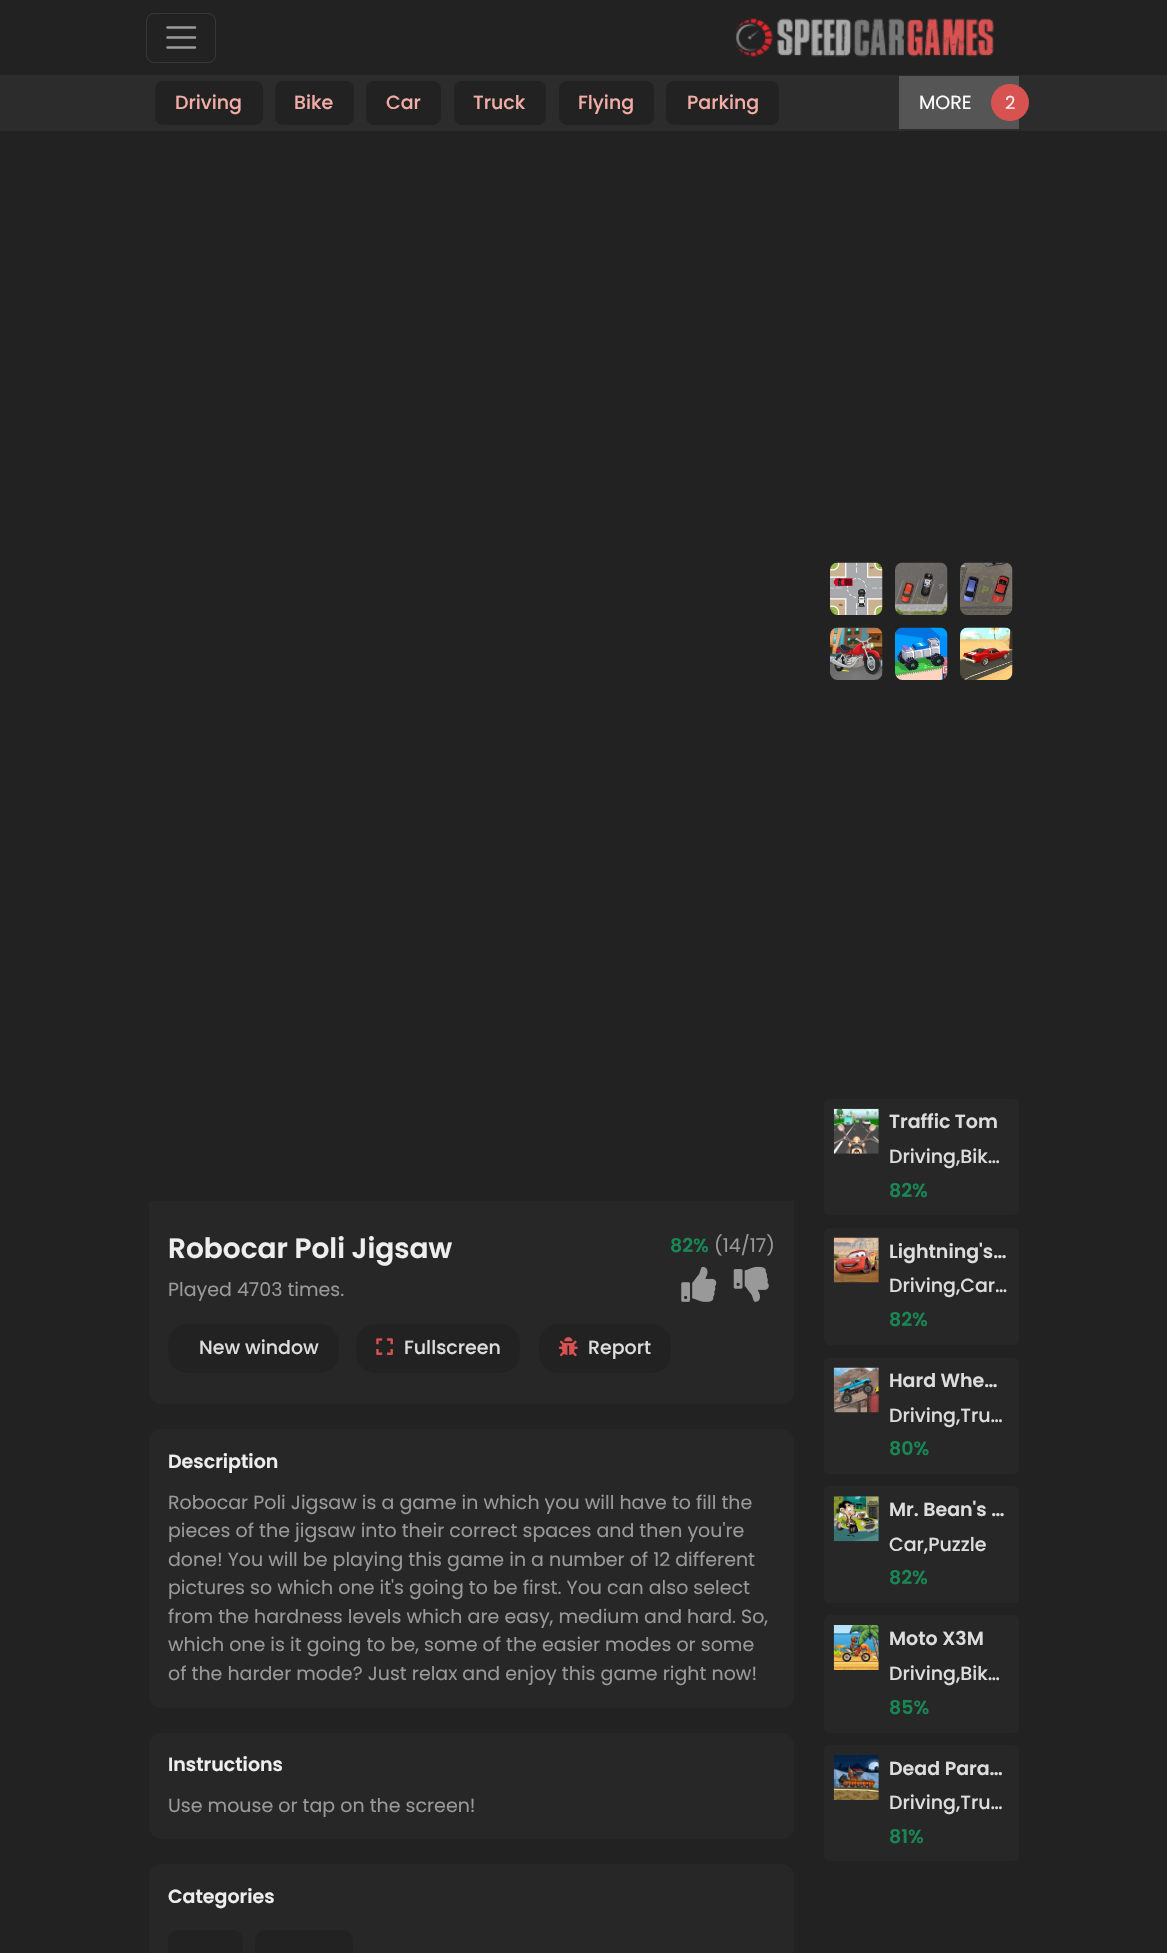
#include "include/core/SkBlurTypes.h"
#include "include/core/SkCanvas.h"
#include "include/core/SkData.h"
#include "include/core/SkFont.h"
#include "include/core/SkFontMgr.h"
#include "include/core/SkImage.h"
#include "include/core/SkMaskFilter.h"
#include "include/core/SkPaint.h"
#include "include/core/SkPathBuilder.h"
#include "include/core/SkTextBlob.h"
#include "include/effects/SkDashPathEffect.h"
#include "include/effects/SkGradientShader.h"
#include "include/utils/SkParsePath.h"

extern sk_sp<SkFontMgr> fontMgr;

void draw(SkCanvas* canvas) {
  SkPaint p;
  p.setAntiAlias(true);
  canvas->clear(SkColorSetRGB(34, 34, 34));
  p.setStyle(SkPaint::kStroke_Style);
  p.setStrokeWidth(1);
  p.setColor(SkColorSetRGB(56, 56, 56));
  canvas->drawRoundRect(SkRect::MakeLTRB(146.5f, 13.5f, 215.5f, 62.5f), 7.5f, 7.5f, p);
  p.setStrokeWidth(2.5f);
  p.setStrokeCap(SkPaint::kRound_Cap);
  p.setColor(SkColorSetRGB(156, 156, 156));
  canvas->drawPath(SkPathBuilder().moveTo(167.5f, 27.5f).lineTo(195, 27.5f).moveTo(167.5f, 37.5f).lineTo(195, 37.5f).moveTo(167.5f, 47.5f).lineTo(195, 47.5f).detach(), p);
  canvas->drawImageRect(SkImages::DeferredFromEncodedData(SkData::MakeFromFileName("images/1.png")), SkRect::MakeLTRB(735, 18, 994, 57), SkSamplingOptions());
  p.setStyle(SkPaint::kFill_Style);
  p.setColor(SkColorSetRGB(44, 44, 44));
  canvas->drawRect(SkRect::MakeLTRB(0, 75, 1167, 131), p);
  p.setColor(SkColorSetRGB(34, 34, 34));
  canvas->drawRoundRect(SkRect::MakeLTRB(155, 81, 263, 125), 8, 8, p);
  canvas->drawRoundRect(SkRect::MakeLTRB(275, 81, 354, 125), 8, 8, p);
  canvas->drawRoundRect(SkRect::MakeLTRB(366, 81, 441, 125), 8, 8, p);
  canvas->drawRoundRect(SkRect::MakeLTRB(454, 81, 546, 125), 8, 8, p);
  canvas->drawRoundRect(SkRect::MakeLTRB(559, 81, 654, 125), 8, 8, p);
  canvas->drawRoundRect(SkRect::MakeLTRB(666, 81, 779, 125), 8, 8, p);
  p.setColor(SkColorSetRGB(85, 85, 85));
  canvas->drawRect(SkRect::MakeLTRB(899, 76, 1019, 129), p);
  p.setColor(SkColorSetRGB(216, 82, 82));
  canvas->drawRoundRect(SkRect::MakeLTRB(991, 84, 1029, 121), 18.5f, 18.5f, p);
  p.setColor(SkColorSetRGB(39, 39, 39));
  canvas->drawPath(SkPathBuilder().moveTo(149, 1201).lineTo(794, 1201).lineTo(794, 1391).cubicTo(794, 1398, 788, 1404, 781, 1404).lineTo(162, 1404).cubicTo(155, 1404, 149, 1398, 149, 1391).close().detach(), p);
  canvas->drawImageRect(SkImages::DeferredFromEncodedData(SkData::MakeFromFileName("images/2.png")), SkRect::MakeLTRB(681, 1266, 717, 1302), SkSamplingOptions());
  canvas->drawImageRect(SkImages::DeferredFromEncodedData(SkData::MakeFromFileName("images/3.png")), SkRect::MakeLTRB(733, 1266, 769, 1302), SkSamplingOptions());
  p.setColor(SkColorSetRGB(34, 34, 34));
  canvas->drawRoundRect(SkRect::MakeLTRB(168, 1324, 339, 1373), 19, 19, p);
  canvas->drawRoundRect(SkRect::MakeLTRB(356, 1324, 520, 1373), 19, 19, p);
  canvas->drawImageRect(SkImages::DeferredFromEncodedData(SkData::MakeFromFileName("images/4.png")), SkRect::MakeLTRB(376, 1338, 393, 1355), SkSamplingOptions());
  canvas->drawRoundRect(SkRect::MakeLTRB(539, 1324, 671, 1373), 19, 19, p);
  canvas->drawImageRect(SkImages::DeferredFromEncodedData(SkData::MakeFromFileName("images/5.png")), SkRect::MakeLTRB(558, 1337, 578, 1357), SkSamplingOptions());
  p.setColor(SkColorSetRGB(39, 39, 39));
  canvas->drawRoundRect(SkRect::MakeLTRB(149, 1429, 794, 1708), 13, 13, p);
  canvas->drawRoundRect(SkRect::MakeLTRB(149, 1733, 794, 1839), 13, 13, p);
  canvas->drawRoundRect(SkRect::MakeLTRB(149, 1864, 794, 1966), 13, 13, p);
  p.setColor(SkColorSetRGB(34, 34, 34));
  canvas->drawRoundRect(SkRect::MakeLTRB(168, 1930, 243, 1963), 10, 10, p);
  canvas->drawRoundRect(SkRect::MakeLTRB(255, 1930, 353, 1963), 10, 10, p);
  canvas->drawImageRect(SkImages::DeferredFromEncodedData(SkData::MakeFromFileName("images/6.png")), SkRect::MakeLTRB(830, 562, 883, 615), SkSamplingOptions());
  canvas->drawImageRect(SkImages::DeferredFromEncodedData(SkData::MakeFromFileName("images/7.png")), SkRect::MakeLTRB(895, 562, 948, 615), SkSamplingOptions());
  canvas->drawImageRect(SkImages::DeferredFromEncodedData(SkData::MakeFromFileName("images/8.png")), SkRect::MakeLTRB(960, 562, 1013, 615), SkSamplingOptions());
  canvas->drawImageRect(SkImages::DeferredFromEncodedData(SkData::MakeFromFileName("images/9.png")), SkRect::MakeLTRB(830, 627, 883, 680), SkSamplingOptions());
  canvas->drawImageRect(SkImages::DeferredFromEncodedData(SkData::MakeFromFileName("images/10.png")), SkRect::MakeLTRB(895, 627, 948, 680), SkSamplingOptions());
  canvas->drawImageRect(SkImages::DeferredFromEncodedData(SkData::MakeFromFileName("images/11.png")), SkRect::MakeLTRB(960, 627, 1013, 680), SkSamplingOptions());
  p.setColor(SkColorSetRGB(39, 39, 39));
  canvas->drawRoundRect(SkRect::MakeLTRB(824, 1099, 1019, 1215), 6, 6, p);
  canvas->drawImageRect(SkImages::DeferredFromEncodedData(SkData::MakeFromFileName("images/12.png")), SkRect::MakeLTRB(833, 1108, 879, 1154), SkSamplingOptions());
  canvas->drawRoundRect(SkRect::MakeLTRB(824, 1228, 1019, 1345), 6, 6, p);
  canvas->drawImageRect(SkImages::DeferredFromEncodedData(SkData::MakeFromFileName("images/13.png")), SkRect::MakeLTRB(833, 1237, 879, 1283), SkSamplingOptions());
  canvas->drawRoundRect(SkRect::MakeLTRB(824, 1358, 1019, 1474), 6, 6, p);
  canvas->drawImageRect(SkImages::DeferredFromEncodedData(SkData::MakeFromFileName("images/14.png")), SkRect::MakeLTRB(833, 1367, 879, 1413), SkSamplingOptions());
  canvas->drawRoundRect(SkRect::MakeLTRB(824, 1486, 1019, 1603), 6, 6, p);
  canvas->drawImageRect(SkImages::DeferredFromEncodedData(SkData::MakeFromFileName("images/15.png")), SkRect::MakeLTRB(833, 1496, 879, 1542), SkSamplingOptions());
  canvas->drawRoundRect(SkRect::MakeLTRB(824, 1615, 1019, 1733), 6, 6, p);
  canvas->drawImageRect(SkImages::DeferredFromEncodedData(SkData::MakeFromFileName("images/16.png")), SkRect::MakeLTRB(833, 1625, 879, 1670), SkSamplingOptions());
  canvas->drawRoundRect(SkRect::MakeLTRB(824, 1745, 1019, 1861), 6, 6, p);
  canvas->drawImageRect(SkImages::DeferredFromEncodedData(SkData::MakeFromFileName("images/17.png")), SkRect::MakeLTRB(833, 1755, 879, 1800), SkSamplingOptions());
  SkFont font1(fontMgr->matchFamilyStyle("Poppins", SkFontStyle(500, SkFontStyle::kNormal_Width, SkFontStyle::kUpright_Slant)), 19);
  font1.setSubpixel(true);
  p.setColor(SkColorSetRGB(241, 173, 166));
  canvas->drawString("Driving", 175, 109, font1, p);
  canvas->drawString("Bike", 294, 109, font1, p);
  canvas->drawString("Car", 386, 109, font1, p);
  canvas->drawString("Truck", 473, 109, font1, p);
  canvas->drawString("Flying", 578, 109, font1, p);
  canvas->drawString("Parking", 687, 109, font1, p);
  SkFont font2(fontMgr->matchFamilyStyle("Poppins", SkFontStyle::Normal()), 19);
  font2.setSubpixel(true);
  p.setColor(SK_ColorWHITE);
  canvas->drawString("MORE", 919, 109, font2, p);
  SkFont font3(fontMgr->matchFamilyStyle("Poppins", SkFontStyle::Normal()), 18);
  font3.setSubpixel(true);
  p.setColor(SkColorSetRGB(238, 238, 238));
  canvas->drawString("2", 1005, 109, font3, p);
  SkFont font4(fontMgr->matchFamilyStyle("Poppins", SkFontStyle(600, SkFontStyle::kNormal_Width, SkFontStyle::kUpright_Slant)), 28);
  font4.setSubpixel(true);
  canvas->drawString("Robocar Poli Jigsaw", 168, 1258, font4, p);
  p.setColor(SkColorSetRGB(153, 153, 153));
  canvas->drawString("Played 4703 times.", 168, 1296, font2, p);
  SkFont font5(fontMgr->matchFamilyStyle("Poppins", SkFontStyle(600, SkFontStyle::kNormal_Width, SkFontStyle::kUpright_Slant)), 19);
  font5.setSubpixel(true);
  p.setColor(SkColorSetRGB(25, 135, 84));
  canvas->drawString("82%", 670, 1252, font5, p);
  p.setColor(SkColorSetRGB(153, 153, 153));
  canvas->drawString("(14/17)", 714, 1252, font2, p);
  p.setColor(SkColorSetRGB(221, 221, 221));
  canvas->drawString("New window", 199, 1354, font1, p);
  canvas->drawString("Fullscreen", 404, 1354, font1, p);
  canvas->drawString("Report", 588, 1354, font1, p);
  p.setColor(SkColorSetRGB(238, 238, 238));
  canvas->drawString("Description", 168, 1468, font5, p);
  p.setColor(SkColorSetRGB(153, 153, 153));
  canvas->drawString("Robocar Poli Jigsaw is a game in which you will have to fill the", 168, 1509, font2, p);
  canvas->drawString("pieces of the jigsaw into their correct spaces and then you're", 168, 1537, font2, p);
  canvas->drawString("done! You will be playing this game in a number of 12 different", 168, 1566, font2, p);
  canvas->drawString("pictures so which one it's going to be first. You can also select", 168, 1594, font2, p);
  canvas->drawString("from the hardness levels which are easy, medium and hard. So,", 168, 1623, font2, p);
  canvas->drawString("which one is it going to be, some of the easier modes or some", 168, 1651, font2, p);
  canvas->drawString("of the harder mode? Just relax and enjoy this game right now!", 168, 1680, font2, p);
  p.setColor(SkColorSetRGB(238, 238, 238));
  canvas->drawString("Instructions", 168, 1771, font5, p);
  p.setColor(SkColorSetRGB(153, 153, 153));
  canvas->drawString("Use mouse or tap on the screen!", 168, 1812, font2, p);
  p.setColor(SkColorSetRGB(238, 238, 238));
  canvas->drawString("Categories", 168, 1903, font5, p);
  p.setColor(SkColorSetRGB(221, 221, 221));
  canvas->drawString("Traffic Tom", 889, 1128, font5, p);
  canvas->drawString("Driving,Bik…", 889, 1163, font1, p);
  p.setColor(SkColorSetRGB(25, 135, 84));
  canvas->drawString("82%", 889, 1197, font5, p);
  p.setColor(SkColorSetRGB(221, 221, 221));
  canvas->drawString("Lightning's…", 889, 1258, font5, p);
  canvas->drawString("Driving,Car…", 889, 1292, font1, p);
  p.setColor(SkColorSetRGB(25, 135, 84));
  canvas->drawString("82%", 889, 1326, font5, p);
  p.setColor(SkColorSetRGB(221, 221, 221));
  canvas->drawString("Hard Whe…", 889, 1387, font5, p);
  canvas->drawString("Driving,Tru…", 889, 1422, font1, p);
  p.setColor(SkColorSetRGB(25, 135, 84));
  canvas->drawString("80%", 889, 1455, font5, p);
  p.setColor(SkColorSetRGB(221, 221, 221));
  canvas->drawString("Mr. Bean's …", 889, 1516, font5, p);
  canvas->drawString("Car,Puzzle", 889, 1551, font1, p);
  p.setColor(SkColorSetRGB(25, 135, 84));
  canvas->drawString("82%", 889, 1584, font5, p);
  p.setColor(SkColorSetRGB(221, 221, 221));
  canvas->drawString("Moto X3M", 889, 1645, font5, p);
  canvas->drawString("Driving,Bik…", 889, 1680, font1, p);
  p.setColor(SkColorSetRGB(25, 135, 84));
  canvas->drawString("85%", 889, 1714, font5, p);
  p.setColor(SkColorSetRGB(221, 221, 221));
  canvas->drawString("Dead Para…", 889, 1775, font5, p);
  canvas->drawString("Driving,Tru…", 889, 1809, font1, p);
  p.setColor(SkColorSetRGB(25, 135, 84));
  canvas->drawString("81%", 889, 1843, font5, p);
}
